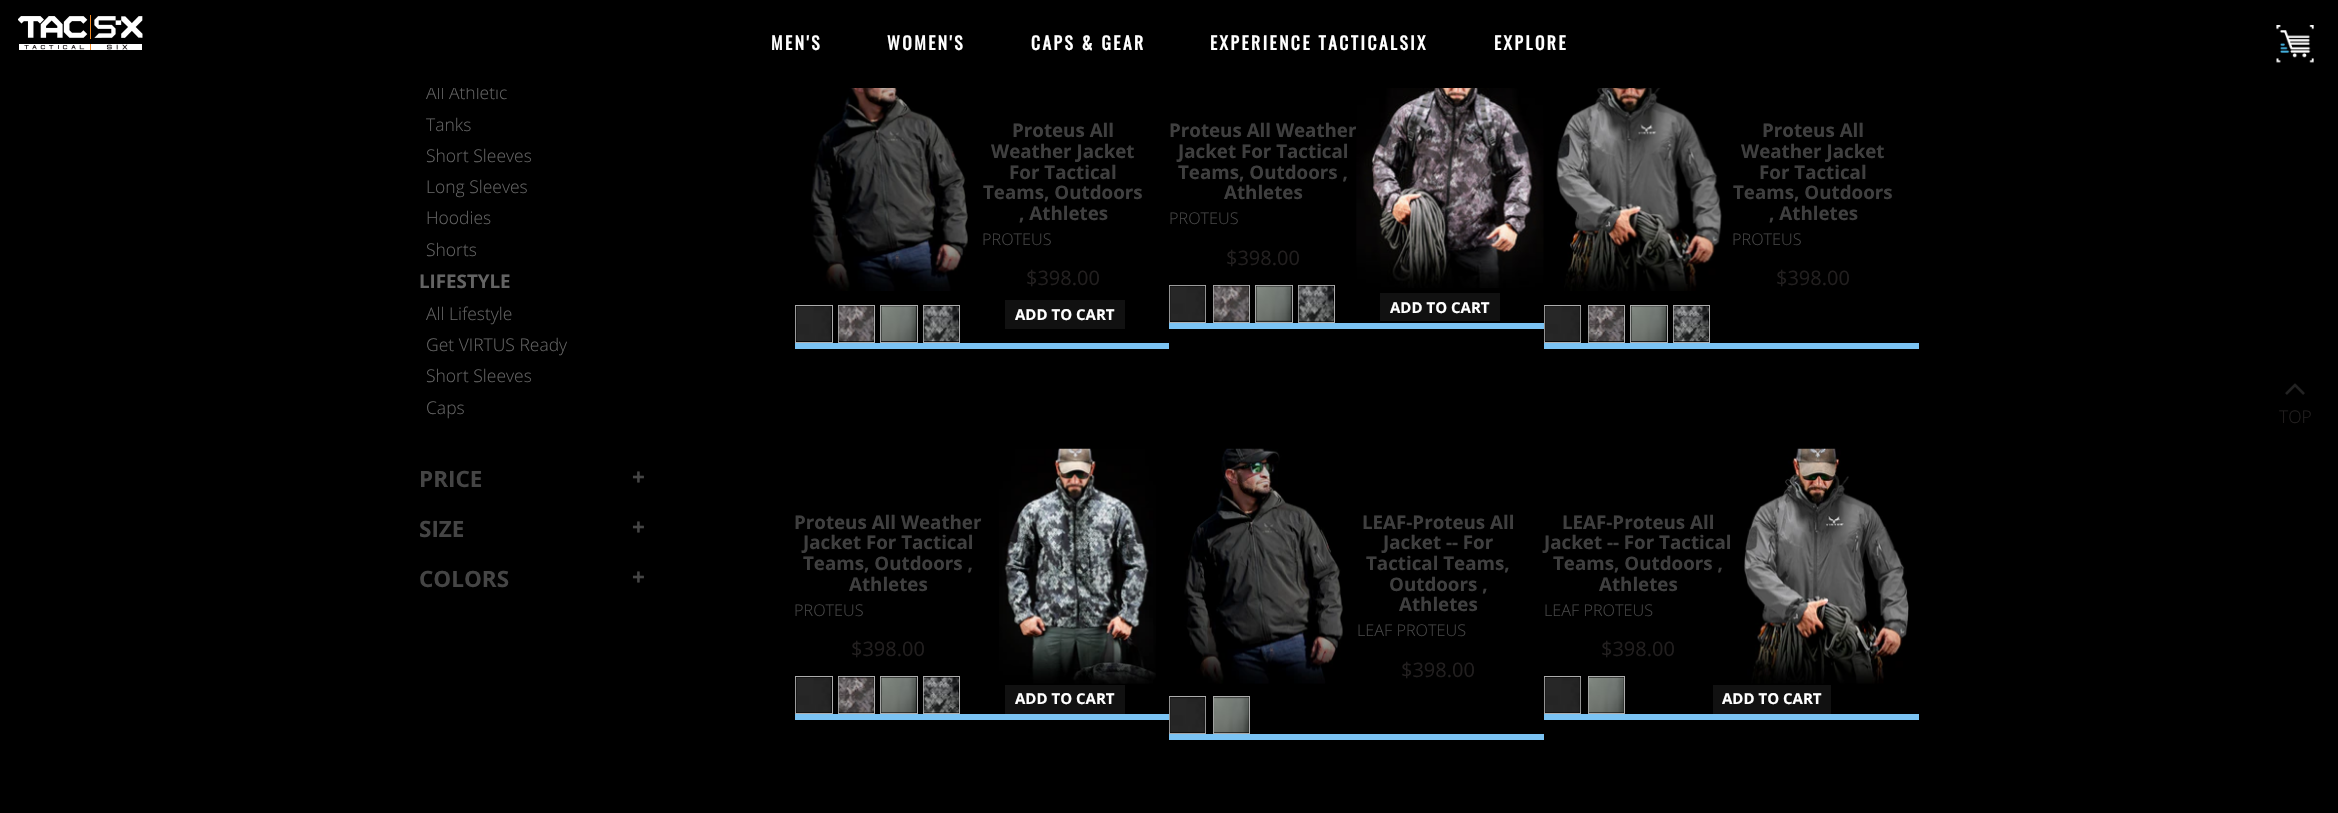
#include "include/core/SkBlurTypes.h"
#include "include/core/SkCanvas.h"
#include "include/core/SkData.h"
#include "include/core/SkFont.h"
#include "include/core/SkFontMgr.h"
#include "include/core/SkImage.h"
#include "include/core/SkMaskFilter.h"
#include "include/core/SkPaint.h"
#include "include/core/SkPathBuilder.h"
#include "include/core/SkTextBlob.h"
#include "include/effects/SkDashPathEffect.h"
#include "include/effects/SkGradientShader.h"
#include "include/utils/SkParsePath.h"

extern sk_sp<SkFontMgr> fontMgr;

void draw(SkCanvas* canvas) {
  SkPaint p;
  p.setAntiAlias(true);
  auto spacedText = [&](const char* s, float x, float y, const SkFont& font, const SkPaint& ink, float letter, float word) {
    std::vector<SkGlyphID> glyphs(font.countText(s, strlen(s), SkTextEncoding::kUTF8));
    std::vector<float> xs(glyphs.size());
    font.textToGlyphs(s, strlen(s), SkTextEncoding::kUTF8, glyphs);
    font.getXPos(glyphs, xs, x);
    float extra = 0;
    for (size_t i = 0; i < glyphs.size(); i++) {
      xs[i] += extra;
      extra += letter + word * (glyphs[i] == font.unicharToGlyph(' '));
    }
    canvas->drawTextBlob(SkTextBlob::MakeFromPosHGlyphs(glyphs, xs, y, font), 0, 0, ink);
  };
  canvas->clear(SK_ColorBLACK);
  canvas->drawImageRect(SkImages::DeferredFromEncodedData(SkData::MakeFromFileName("images/1.png")), SkRect::MakeLTRB(18, 15, 143, 50), SkSamplingOptions());
  canvas->drawImageRect(SkImages::DeferredFromEncodedData(SkData::MakeFromFileName("images/2.png")), SkRect::MakeLTRB(2276, 25, 2314, 63), SkSamplingOptions());
  p.setColor(SkColorSetRGB(123, 195, 243));
  canvas->drawRect(SkRect::MakeLTRB(795, 343, 1169, 349), p);
  canvas->drawImageRect(SkImages::DeferredFromEncodedData(SkData::MakeFromFileName("images/3.png")), SkRect::MakeLTRB(811, 88, 968, 291), SkSamplingOptions());
  p.setStyle(SkPaint::kStroke_Style);
  p.setStrokeWidth(1);
  p.setColor(SkColorSetRGB(173, 173, 173));
  canvas->drawRect(SkRect::MakeLTRB(795.5f, 305.5f, 832.5f, 342.5f), p);
  canvas->drawImageRect(SkImages::DeferredFromEncodedData(SkData::MakeFromFileName("images/4.png")), SkRect::MakeLTRB(795, 306, 832, 342), SkSamplingOptions());
  canvas->drawRect(SkRect::MakeLTRB(838.5f, 305.5f, 874.5f, 342.5f), p);
  canvas->drawImageRect(SkImages::DeferredFromEncodedData(SkData::MakeFromFileName("images/5.png")), SkRect::MakeLTRB(838, 306, 874, 342), SkSamplingOptions());
  canvas->drawRect(SkRect::MakeLTRB(880.5f, 305.5f, 917.5f, 342.5f), p);
  canvas->drawImageRect(SkImages::DeferredFromEncodedData(SkData::MakeFromFileName("images/6.png")), SkRect::MakeLTRB(880, 306, 917, 342), SkSamplingOptions());
  canvas->drawRect(SkRect::MakeLTRB(923.5f, 305.5f, 959.5f, 342.5f), p);
  canvas->drawImageRect(SkImages::DeferredFromEncodedData(SkData::MakeFromFileName("images/7.png")), SkRect::MakeLTRB(923, 306, 959, 342), SkSamplingOptions());
  p.setStyle(SkPaint::kFill_Style);
  p.setColor(SkColorSetRGB(17, 17, 17));
  canvas->drawRect(SkRect::MakeLTRB(1005, 300, 1125, 329), p);
  p.setColor(SkColorSetRGB(123, 195, 243));
  canvas->drawRect(SkRect::MakeLTRB(1169, 323, 1544, 329), p);
  p.setStyle(SkPaint::kStroke_Style);
  p.setColor(SkColorSetRGB(173, 173, 173));
  canvas->drawRect(SkRect::MakeLTRB(1169.5f, 285.5f, 1205.5f, 322.5f), p);
  canvas->drawImageRect(SkImages::DeferredFromEncodedData(SkData::MakeFromFileName("images/9.png")), SkRect::MakeLTRB(1169, 285, 1206, 322), SkSamplingOptions());
  canvas->drawRect(SkRect::MakeLTRB(1213.5f, 285.5f, 1249.5f, 322.5f), p);
  canvas->drawImageRect(SkImages::DeferredFromEncodedData(SkData::MakeFromFileName("images/10.png")), SkRect::MakeLTRB(1213, 285, 1249, 322), SkSamplingOptions());
  canvas->drawRect(SkRect::MakeLTRB(1255.5f, 285.5f, 1292.5f, 322.5f), p);
  canvas->drawImageRect(SkImages::DeferredFromEncodedData(SkData::MakeFromFileName("images/11.png")), SkRect::MakeLTRB(1255, 285, 1292, 322), SkSamplingOptions());
  canvas->drawRect(SkRect::MakeLTRB(1298.5f, 285.5f, 1334.5f, 322.5f), p);
  canvas->drawImageRect(SkImages::DeferredFromEncodedData(SkData::MakeFromFileName("images/12.png")), SkRect::MakeLTRB(1298, 285, 1334, 322), SkSamplingOptions());
  p.setStyle(SkPaint::kFill_Style);
  p.setColor(SkColorSetRGB(17, 17, 17));
  canvas->drawRect(SkRect::MakeLTRB(1380, 293, 1500, 321), p);
  p.setColor(SkColorSetRGB(123, 195, 243));
  canvas->drawRect(SkRect::MakeLTRB(1544, 343, 1919, 349), p);
  canvas->drawImageRect(SkImages::DeferredFromEncodedData(SkData::MakeFromFileName("images/13.png")), SkRect::MakeLTRB(1556, 88, 1722, 291), SkSamplingOptions());
  p.setStyle(SkPaint::kStroke_Style);
  p.setColor(SkColorSetRGB(173, 173, 173));
  canvas->drawRect(SkRect::MakeLTRB(1544.5f, 305.5f, 1580.5f, 342.5f), p);
  canvas->drawImageRect(SkImages::DeferredFromEncodedData(SkData::MakeFromFileName("images/14.png")), SkRect::MakeLTRB(1544, 306, 1581, 342), SkSamplingOptions());
  canvas->drawRect(SkRect::MakeLTRB(1588.5f, 305.5f, 1624.5f, 342.5f), p);
  canvas->drawImageRect(SkImages::DeferredFromEncodedData(SkData::MakeFromFileName("images/15.png")), SkRect::MakeLTRB(1588, 306, 1624, 342), SkSamplingOptions());
  canvas->drawRect(SkRect::MakeLTRB(1630.5f, 305.5f, 1667.5f, 342.5f), p);
  canvas->drawImageRect(SkImages::DeferredFromEncodedData(SkData::MakeFromFileName("images/16.png")), SkRect::MakeLTRB(1630, 306, 1667, 342), SkSamplingOptions());
  canvas->drawRect(SkRect::MakeLTRB(1673.5f, 305.5f, 1709.5f, 342.5f), p);
  canvas->drawImageRect(SkImages::DeferredFromEncodedData(SkData::MakeFromFileName("images/17.png")), SkRect::MakeLTRB(1673, 306, 1709, 342), SkSamplingOptions());
  p.setStyle(SkPaint::kFill_Style);
  p.setColor(SkColorSetRGB(123, 195, 243));
  canvas->drawRect(SkRect::MakeLTRB(795, 714, 1169, 720), p);
  canvas->drawImageRect(SkImages::DeferredFromEncodedData(SkData::MakeFromFileName("images/18.png")), SkRect::MakeLTRB(999, 448, 1156, 684), SkSamplingOptions());
  p.setStyle(SkPaint::kStroke_Style);
  p.setColor(SkColorSetRGB(173, 173, 173));
  canvas->drawRect(SkRect::MakeLTRB(795.5f, 676.5f, 832.5f, 713.5f), p);
  canvas->drawImageRect(SkImages::DeferredFromEncodedData(SkData::MakeFromFileName("images/19.png")), SkRect::MakeLTRB(795, 677, 832, 713), SkSamplingOptions());
  canvas->drawRect(SkRect::MakeLTRB(838.5f, 676.5f, 874.5f, 713.5f), p);
  canvas->drawImageRect(SkImages::DeferredFromEncodedData(SkData::MakeFromFileName("images/20.png")), SkRect::MakeLTRB(838, 677, 874, 713), SkSamplingOptions());
  canvas->drawRect(SkRect::MakeLTRB(880.5f, 676.5f, 917.5f, 713.5f), p);
  canvas->drawImageRect(SkImages::DeferredFromEncodedData(SkData::MakeFromFileName("images/21.png")), SkRect::MakeLTRB(880, 677, 917, 713), SkSamplingOptions());
  canvas->drawRect(SkRect::MakeLTRB(923.5f, 676.5f, 959.5f, 713.5f), p);
  canvas->drawImageRect(SkImages::DeferredFromEncodedData(SkData::MakeFromFileName("images/22.png")), SkRect::MakeLTRB(923, 677, 959, 713), SkSamplingOptions());
  p.setStyle(SkPaint::kFill_Style);
  p.setColor(SkColorSetRGB(17, 17, 17));
  canvas->drawRect(SkRect::MakeLTRB(1005, 685, 1125, 714), p);
  p.setColor(SkColorSetRGB(123, 195, 243));
  canvas->drawRect(SkRect::MakeLTRB(1169, 734, 1544, 740), p);
  canvas->drawImageRect(SkImages::DeferredFromEncodedData(SkData::MakeFromFileName("images/23.png")), SkRect::MakeLTRB(1184, 448, 1343, 684), SkSamplingOptions());
  p.setStyle(SkPaint::kStroke_Style);
  p.setColor(SkColorSetRGB(173, 173, 173));
  canvas->drawRect(SkRect::MakeLTRB(1169.5f, 696.5f, 1205.5f, 733.5f), p);
  canvas->drawImageRect(SkImages::DeferredFromEncodedData(SkData::MakeFromFileName("images/24.png")), SkRect::MakeLTRB(1169, 697, 1206, 734), SkSamplingOptions());
  canvas->drawRect(SkRect::MakeLTRB(1213.5f, 696.5f, 1249.5f, 733.5f), p);
  canvas->drawImageRect(SkImages::DeferredFromEncodedData(SkData::MakeFromFileName("images/25.png")), SkRect::MakeLTRB(1213, 697, 1249, 734), SkSamplingOptions());
  p.setStyle(SkPaint::kFill_Style);
  p.setColor(SkColorSetRGB(123, 195, 243));
  canvas->drawRect(SkRect::MakeLTRB(1544, 714, 1919, 720), p);
  canvas->drawImageRect(SkImages::DeferredFromEncodedData(SkData::MakeFromFileName("images/26.png")), SkRect::MakeLTRB(1744, 448, 1909, 684), SkSamplingOptions());
  p.setStyle(SkPaint::kStroke_Style);
  p.setColor(SkColorSetRGB(173, 173, 173));
  canvas->drawRect(SkRect::MakeLTRB(1544.5f, 676.5f, 1580.5f, 713.5f), p);
  canvas->drawImageRect(SkImages::DeferredFromEncodedData(SkData::MakeFromFileName("images/27.png")), SkRect::MakeLTRB(1544, 677, 1581, 713), SkSamplingOptions());
  canvas->drawRect(SkRect::MakeLTRB(1588.5f, 676.5f, 1624.5f, 713.5f), p);
  canvas->drawImageRect(SkImages::DeferredFromEncodedData(SkData::MakeFromFileName("images/28.png")), SkRect::MakeLTRB(1588, 677, 1624, 713), SkSamplingOptions());
  p.setStyle(SkPaint::kFill_Style);
  p.setColor(SkColorSetRGB(17, 17, 17));
  canvas->drawRect(SkRect::MakeLTRB(1713, 685, 1831, 714), p);
  canvas->drawImageRect(SkImages::DeferredFromEncodedData(SkData::MakeFromFileName("images/29.png")), SkRect::MakeLTRB(2285, 383, 2305, 395), SkSamplingOptions());
  SkFont font1(fontMgr->matchFamilyStyle("Oswald", SkFontStyle::Bold()), 17.5f);
  font1.setSubpixel(true);
  p.setColor(SK_ColorWHITE);
  spacedText("MEN'S", 771, 50, font1, p, 2.5f, 0);
  spacedText("WOMEN'S", 887, 50, font1, p, 2.5f, 0);
  spacedText("CAPS & GEAR", 1031, 50, font1, p, 2.5f, 0);
  spacedText("EXPERIENCE TACTICALSIX", 1210, 50, font1, p, 2.5f, 0);
  spacedText("EXPLORE", 1494, 50, font1, p, 2.5f, 0);
  SkFont font2(fontMgr->matchFamilyStyle("Open Sans", SkFontStyle(300, SkFontStyle::kNormal_Width, SkFontStyle::kUpright_Slant)), 17.5f);
  font2.setSubpixel(true);
  p.setColor(SkColorSetRGB(99, 99, 99));
  canvas->drawString("All Athletic", 426, 99, font2, p);
  p.setColor(SK_ColorBLACK);
  canvas->drawRect(SkRect::MakeLTRB(430, 85, 498, 88), p);
  p.setColor(SkColorSetRGB(99, 99, 99));
  canvas->drawString("Tanks", 426, 131, font2, p);
  canvas->drawString("Short Sleeves", 426, 162, font2, p);
  canvas->drawString("Long Sleeves", 426, 193, font2, p);
  canvas->drawString("Hoodies", 426, 224, font2, p);
  canvas->drawString("Shorts", 426, 256, font2, p);
  SkFont font3(fontMgr->matchFamilyStyle("Open Sans", SkFontStyle::Bold()), 18.75f);
  font3.setSubpixel(true);
  canvas->drawString("LIFESTYLE", 419, 288, font3, p);
  canvas->drawString("All Lifestyle", 426, 320, font2, p);
  canvas->drawString("Get VIRTUS Ready", 426, 351, font2, p);
  canvas->drawString("Short Sleeves", 426, 382, font2, p);
  canvas->drawString("Caps", 426, 414, font2, p);
  SkFont font4(fontMgr->matchFamilyStyle("Open Sans", SkFontStyle::Bold()), 22.5f);
  font4.setSubpixel(true);
  p.setColor(SkColorSetRGB(69, 69, 69));
  canvas->drawString("PRICE", 419, 487, font4, p);
  canvas->drawString("+", 632, 485, font4, p);
  canvas->drawString("SIZE", 419, 537, font4, p);
  canvas->drawString("+", 632, 535, font4, p);
  canvas->drawString("COLORS", 419, 587, font4, p);
  canvas->drawString("+", 632, 585, font4, p);
  p.setColor(SkColorSetRGB(63, 63, 63));
  canvas->drawString("Proteus All", 1012, 137, font3, p);
  canvas->drawString("Weather Jacket", 991, 158, font3, p);
  canvas->drawString("For Tactical", 1009, 179, font3, p);
  canvas->drawString("Teams, Outdoors", 983, 199, font3, p);
  canvas->drawString(", Athletes", 1019, 220, font3, p);
  SkFont font5(fontMgr->matchFamilyStyle("Open Sans", SkFontStyle(300, SkFontStyle::kNormal_Width, SkFontStyle::kUpright_Slant)), 16.25f);
  font5.setSubpixel(true);
  p.setColor(SkColorSetRGB(69, 69, 69));
  canvas->drawString("PROTEUS", 982, 245, font5, p);
  SkFont font6(fontMgr->matchFamilyStyle("Open Sans", SkFontStyle::Normal()), 20);
  font6.setSubpixel(true);
  p.setColor(SkColorSetRGB(34, 31, 31));
  canvas->drawString("$398.00", 1026, 285, font6, p);
  SkFont font7(fontMgr->matchFamilyStyle("Open Sans", SkFontStyle::Bold()), 15);
  font7.setSubpixel(true);
  p.setColor(SK_ColorWHITE);
  canvas->drawString("ADD TO CART", 1015, 320, font7, p);
  p.setColor(SkColorSetRGB(63, 63, 63));
  canvas->drawString("Proteus All Weather", 1169, 137, font3, p);
  canvas->drawString("Jacket For Tactical", 1178, 158, font3, p);
  canvas->drawString("Teams, Outdoors ,", 1178, 179, font3, p);
  canvas->drawString("Athletes", 1224, 199, font3, p);
  p.setColor(SkColorSetRGB(69, 69, 69));
  canvas->drawString("PROTEUS", 1169, 224, font5, p);
  p.setColor(SkColorSetRGB(34, 31, 31));
  canvas->drawString("$398.00", 1226, 265, font6, p);
  canvas->drawImageRect(SkImages::DeferredFromEncodedData(SkData::MakeFromFileName("images/8.png")), SkRect::MakeLTRB(1356, 88, 1544, 288), SkSamplingOptions());
  p.setColor(SK_ColorWHITE);
  canvas->drawString("ADD TO CART", 1390, 313, font7, p);
  p.setColor(SkColorSetRGB(63, 63, 63));
  canvas->drawString("Proteus All", 1762, 137, font3, p);
  canvas->drawString("Weather Jacket", 1741, 158, font3, p);
  canvas->drawString("For Tactical", 1759, 179, font3, p);
  canvas->drawString("Teams, Outdoors", 1733, 199, font3, p);
  canvas->drawString(", Athletes", 1769, 220, font3, p);
  p.setColor(SkColorSetRGB(69, 69, 69));
  canvas->drawString("PROTEUS", 1732, 245, font5, p);
  p.setColor(SkColorSetRGB(34, 31, 31));
  canvas->drawString("$398.00", 1776, 285, font6, p);
  p.setColor(SkColorSetRGB(63, 63, 63));
  canvas->drawString("Proteus All Weather", 794, 529, font3, p);
  canvas->drawString("Jacket For Tactical", 803, 549, font3, p);
  canvas->drawString("Teams, Outdoors ,", 803, 570, font3, p);
  canvas->drawString("Athletes", 849, 591, font3, p);
  p.setColor(SkColorSetRGB(69, 69, 69));
  canvas->drawString("PROTEUS", 794, 616, font5, p);
  p.setColor(SkColorSetRGB(34, 31, 31));
  canvas->drawString("$398.00", 851, 656, font6, p);
  p.setColor(SK_ColorWHITE);
  canvas->drawString("ADD TO CART", 1015, 704, font7, p);
  p.setColor(SkColorSetRGB(63, 63, 63));
  canvas->drawString("LEAF-Proteus All", 1362, 529, font3, p);
  canvas->drawString("Jacket -- For", 1383, 549, font3, p);
  canvas->drawString("Tactical Teams,", 1366, 570, font3, p);
  canvas->drawString("Outdoors ,", 1389, 591, font3, p);
  canvas->drawString("Athletes", 1399, 611, font3, p);
  p.setColor(SkColorSetRGB(69, 69, 69));
  canvas->drawString("LEAF PROTEUS", 1357, 636, font5, p);
  p.setColor(SkColorSetRGB(34, 31, 31));
  canvas->drawString("$398.00", 1401, 677, font6, p);
  p.setColor(SkColorSetRGB(63, 63, 63));
  canvas->drawString("LEAF-Proteus All", 1562, 529, font3, p);
  canvas->drawString("Jacket -- For Tactical", 1544, 549, font3, p);
  canvas->drawString("Teams, Outdoors ,", 1553, 570, font3, p);
  canvas->drawString("Athletes", 1599, 591, font3, p);
  p.setColor(SkColorSetRGB(69, 69, 69));
  canvas->drawString("LEAF PROTEUS", 1544, 616, font5, p);
  p.setColor(SkColorSetRGB(34, 31, 31));
  canvas->drawString("$398.00", 1601, 656, font6, p);
  p.setColor(SK_ColorWHITE);
  canvas->drawString("ADD TO CART", 1722, 704, font7, p);
  p.setColor(SkColorSetRGB(34, 31, 31));
  canvas->drawString("TOP", 2279, 423, font2, p);
}
